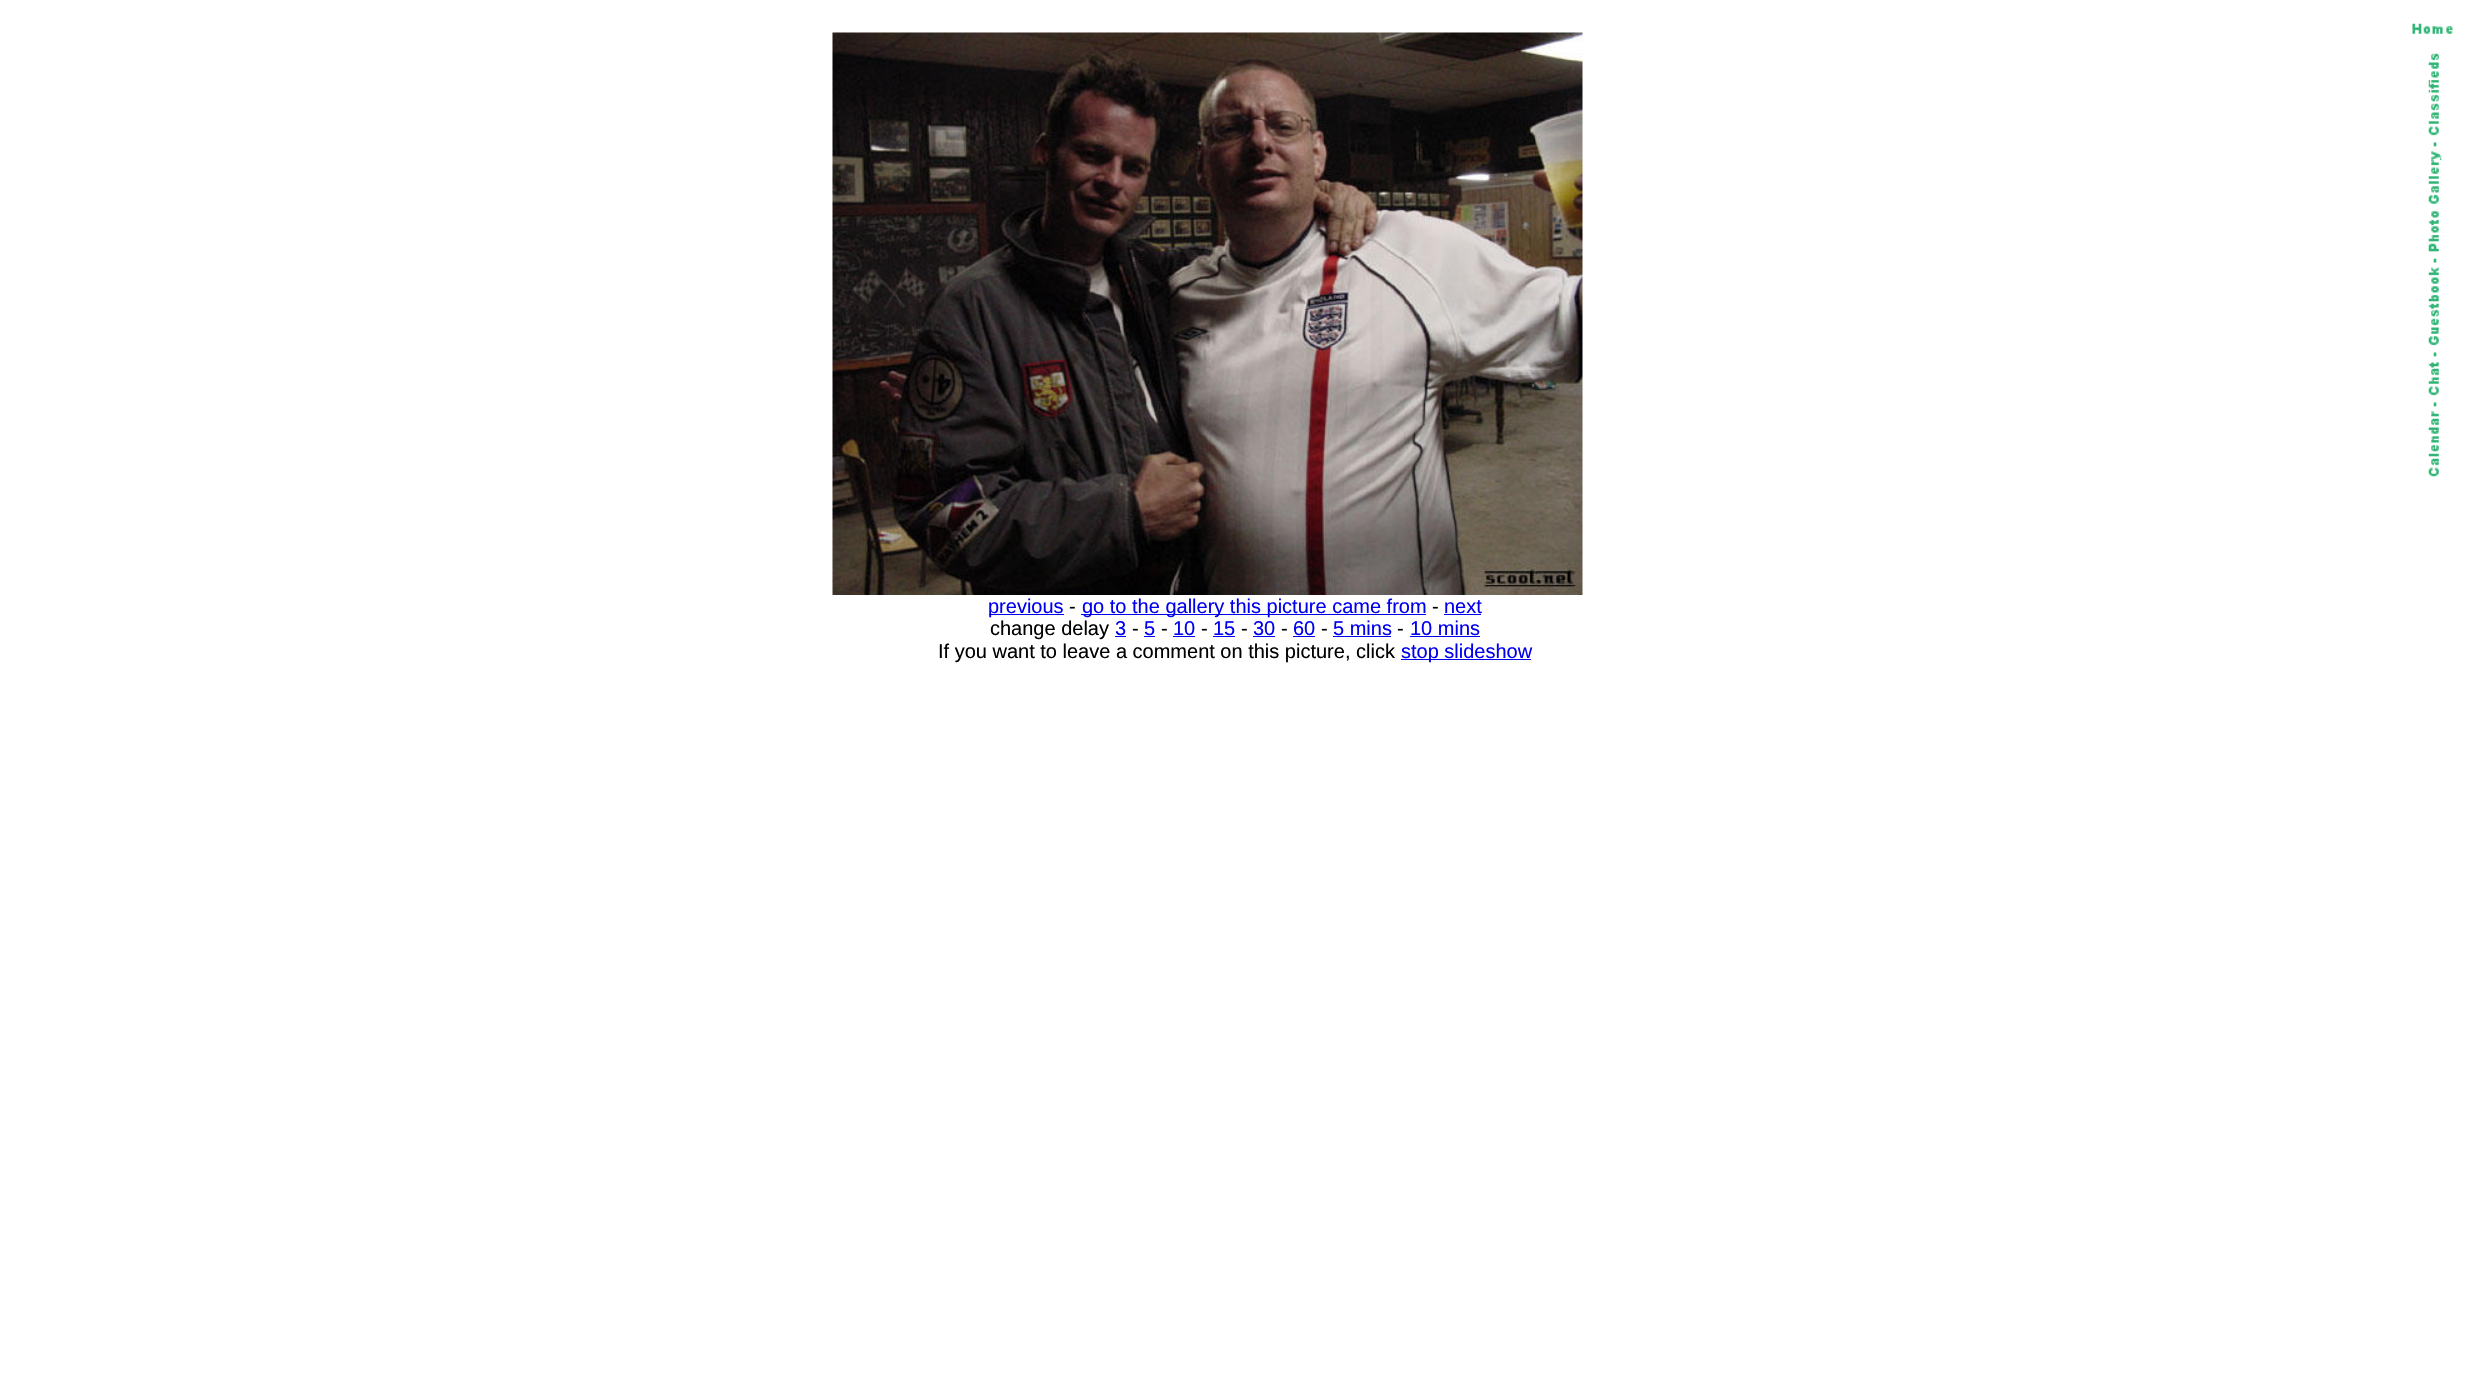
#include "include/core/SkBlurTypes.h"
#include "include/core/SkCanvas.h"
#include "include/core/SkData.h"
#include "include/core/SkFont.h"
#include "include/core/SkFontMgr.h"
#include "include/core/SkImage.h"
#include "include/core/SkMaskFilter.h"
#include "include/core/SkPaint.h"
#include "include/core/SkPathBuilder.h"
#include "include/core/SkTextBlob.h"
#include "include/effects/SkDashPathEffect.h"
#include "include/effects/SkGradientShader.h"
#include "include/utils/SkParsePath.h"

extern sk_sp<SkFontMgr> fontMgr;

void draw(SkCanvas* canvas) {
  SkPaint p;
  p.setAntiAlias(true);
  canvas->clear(SK_ColorWHITE);
  canvas->drawImageRect(SkImages::DeferredFromEncodedData(SkData::MakeFromFileName("images/1.png")), SkRect::MakeLTRB(2412, 23, 2453, 34), SkSamplingOptions());
  canvas->drawImageRect(SkImages::DeferredFromEncodedData(SkData::MakeFromFileName("images/2.png")), SkRect::MakeLTRB(2428, 53, 2442, 477), SkSamplingOptions());
  canvas->drawImageRect(SkImages::DeferredFromEncodedData(SkData::MakeFromFileName("images/3.png")), SkRect::MakeLTRB(832, 32, 1583, 595), SkSamplingOptions());
  p.setColor(SkColorSetRGB(0, 0, 238));
  canvas->drawRect(SkRect::MakeLTRB(989, 614, 1064, 615), p);
  canvas->drawRect(SkRect::MakeLTRB(1081, 614, 1426, 615), p);
  canvas->drawRect(SkRect::MakeLTRB(1444, 614, 1481, 615), p);
  canvas->drawRect(SkRect::MakeLTRB(1115, 636, 1126, 637), p);
  canvas->drawRect(SkRect::MakeLTRB(1144, 636, 1155, 637), p);
  canvas->drawRect(SkRect::MakeLTRB(1173, 636, 1195, 637), p);
  canvas->drawRect(SkRect::MakeLTRB(1213, 636, 1235, 637), p);
  canvas->drawRect(SkRect::MakeLTRB(1253, 636, 1275, 637), p);
  canvas->drawRect(SkRect::MakeLTRB(1293, 636, 1315, 637), p);
  canvas->drawRect(SkRect::MakeLTRB(1333, 636, 1391, 637), p);
  canvas->drawRect(SkRect::MakeLTRB(1410, 636, 1480, 637), p);
  canvas->drawRect(SkRect::MakeLTRB(1401, 659, 1531, 660), p);
  SkFont font1(fontMgr->matchFamilyStyle("Liberation Sans", SkFontStyle::Normal()), 20);
  font1.setSubpixel(true);
  canvas->drawString("previous", 988, 613, font1, p);
  p.setColor(SK_ColorBLACK);
  canvas->drawString("-", 1069, 613, font1, p);
  p.setColor(SkColorSetRGB(0, 0, 238));
  canvas->drawString("go to the gallery this picture came from", 1082, 613, font1, p);
  p.setColor(SK_ColorBLACK);
  canvas->drawString("-", 1432, 613, font1, p);
  p.setColor(SkColorSetRGB(0, 0, 238));
  canvas->drawString("next", 1444, 613, font1, p);
  p.setColor(SK_ColorBLACK);
  canvas->drawString("change delay", 990, 635, font1, p);
  p.setColor(SkColorSetRGB(0, 0, 238));
  canvas->drawString("3", 1115, 635, font1, p);
  p.setColor(SK_ColorBLACK);
  canvas->drawString("-", 1132, 635, font1, p);
  p.setColor(SkColorSetRGB(0, 0, 238));
  canvas->drawString("5", 1144, 635, font1, p);
  p.setColor(SK_ColorBLACK);
  canvas->drawString("-", 1161, 635, font1, p);
  p.setColor(SkColorSetRGB(0, 0, 238));
  canvas->drawString("10", 1173, 635, font1, p);
  p.setColor(SK_ColorBLACK);
  canvas->drawString("-", 1201, 635, font1, p);
  p.setColor(SkColorSetRGB(0, 0, 238));
  canvas->drawString("15", 1213, 635, font1, p);
  p.setColor(SK_ColorBLACK);
  canvas->drawString("-", 1241, 635, font1, p);
  p.setColor(SkColorSetRGB(0, 0, 238));
  canvas->drawString("30", 1253, 635, font1, p);
  p.setColor(SK_ColorBLACK);
  canvas->drawString("-", 1281, 635, font1, p);
  p.setColor(SkColorSetRGB(0, 0, 238));
  canvas->drawString("60", 1293, 635, font1, p);
  p.setColor(SK_ColorBLACK);
  canvas->drawString("-", 1321, 635, font1, p);
  p.setColor(SkColorSetRGB(0, 0, 238));
  canvas->drawString("5 mins", 1333, 635, font1, p);
  p.setColor(SK_ColorBLACK);
  canvas->drawString("-", 1397, 635, font1, p);
  p.setColor(SkColorSetRGB(0, 0, 238));
  canvas->drawString("10 mins", 1410, 635, font1, p);
  p.setColor(SK_ColorBLACK);
  canvas->drawString("If you want to leave a comment on this picture, click", 938, 658, font1, p);
  p.setColor(SkColorSetRGB(0, 0, 238));
  canvas->drawString("stop slideshow", 1401, 658, font1, p);
}
